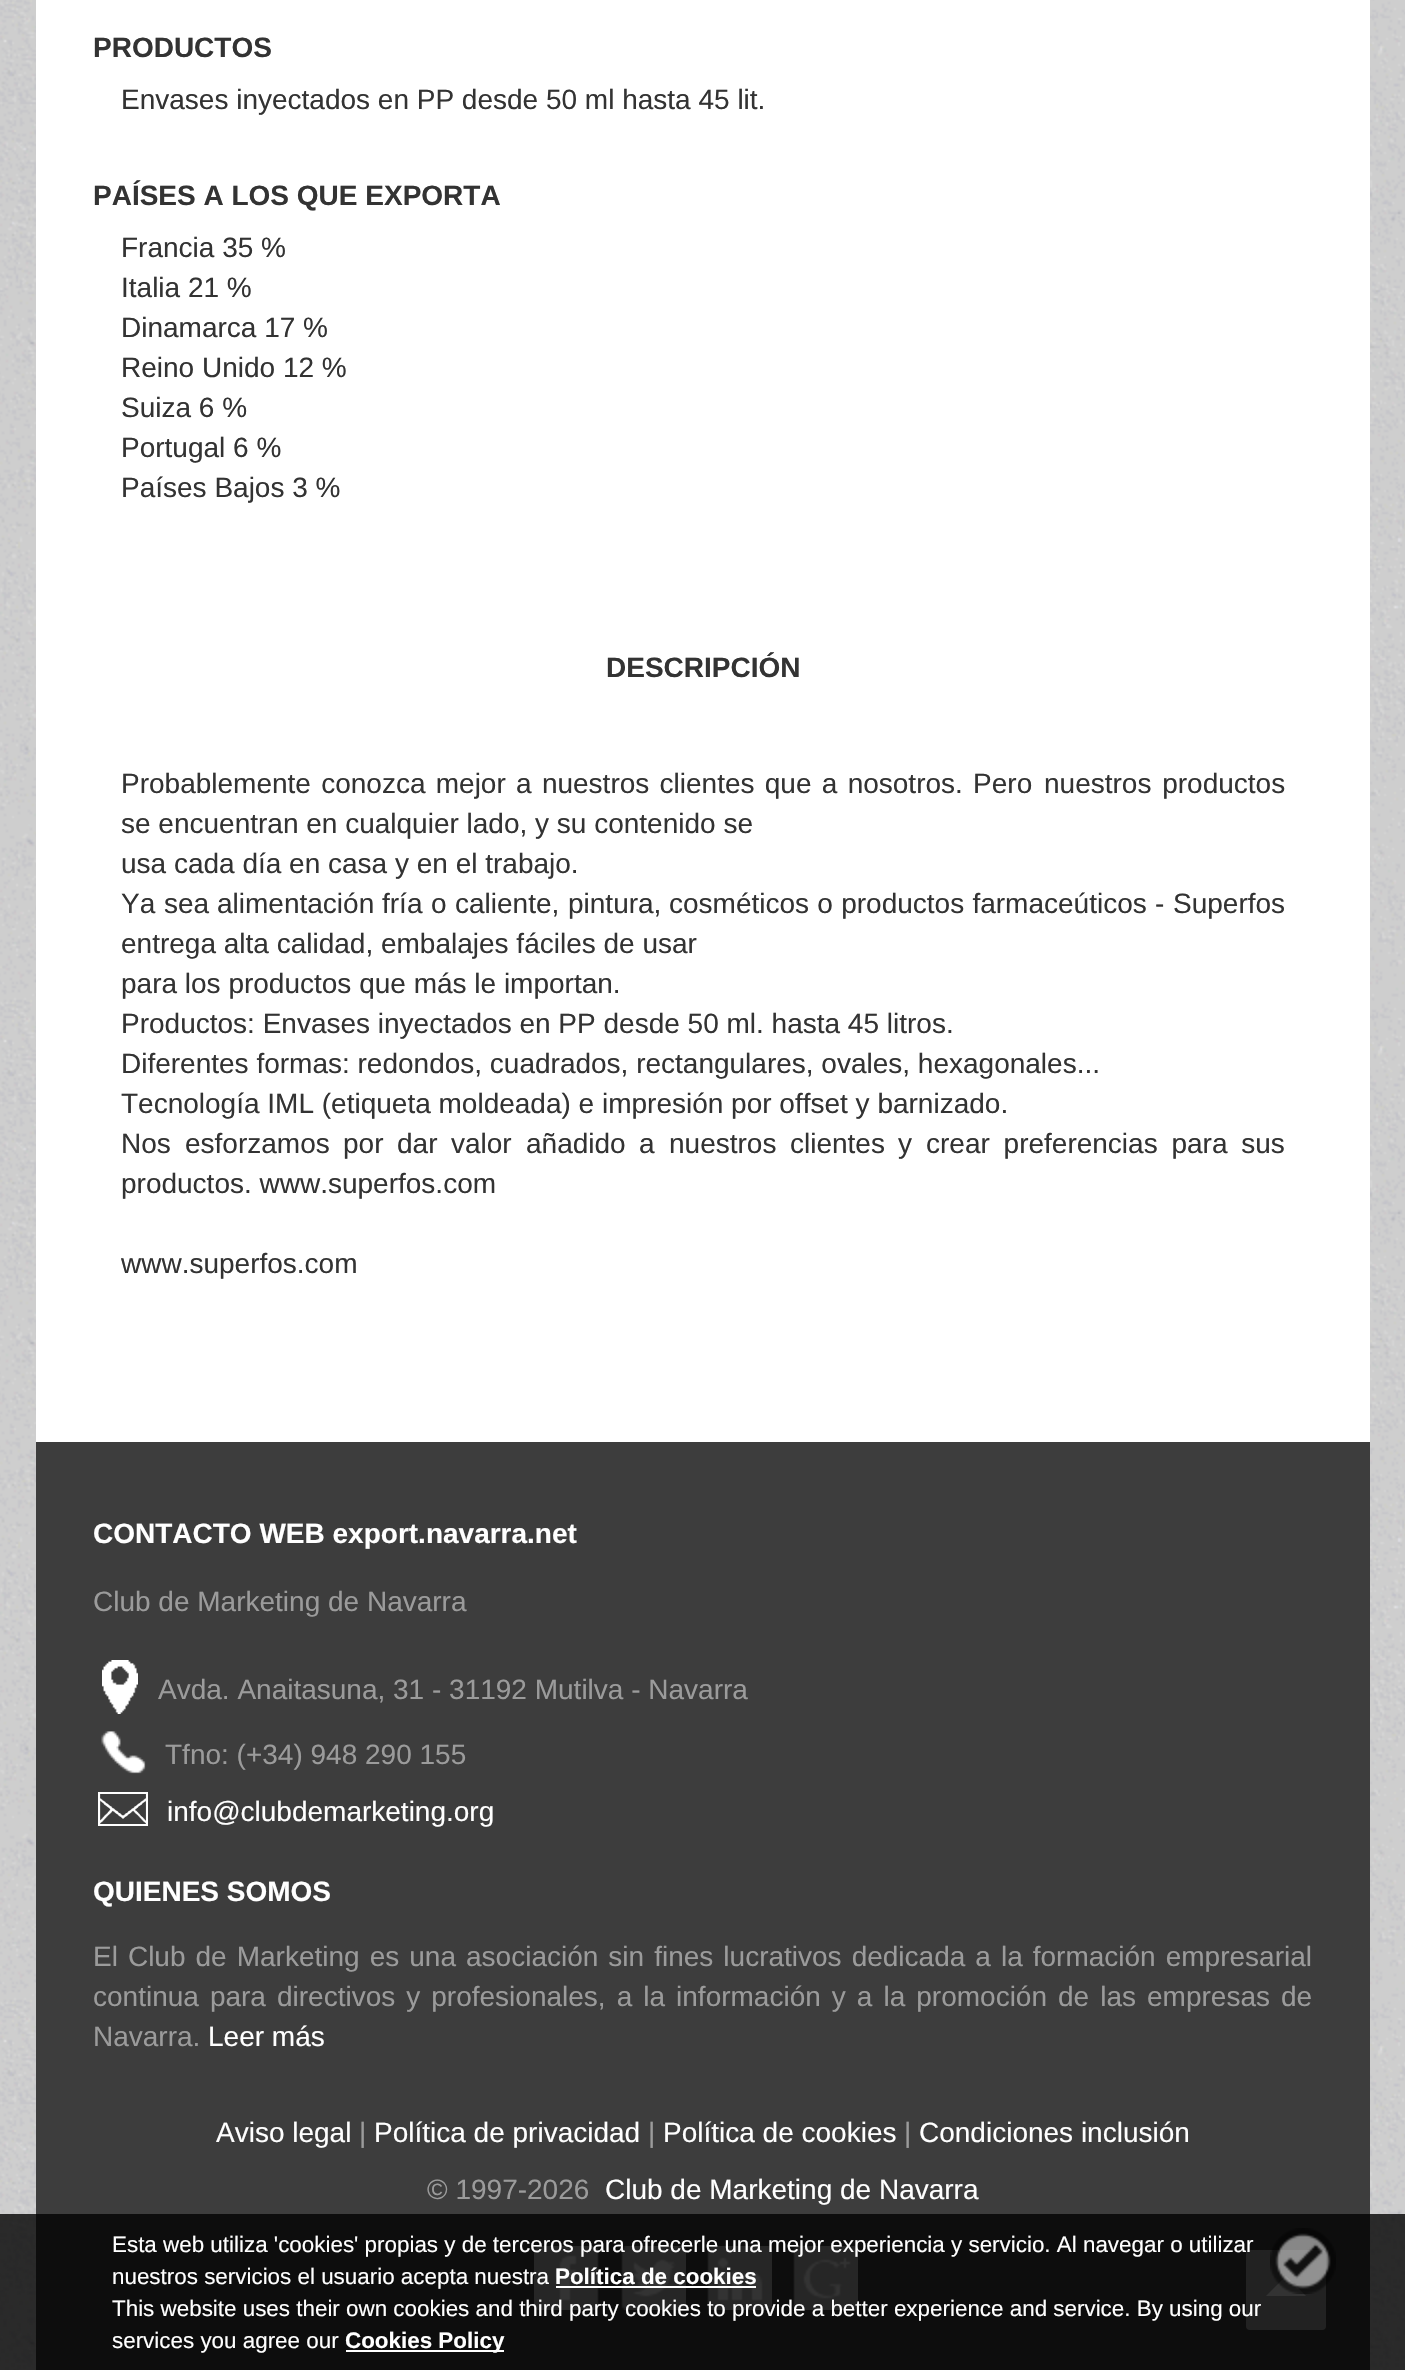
#include "include/core/SkBlurTypes.h"
#include "include/core/SkCanvas.h"
#include "include/core/SkData.h"
#include "include/core/SkFont.h"
#include "include/core/SkFontMgr.h"
#include "include/core/SkImage.h"
#include "include/core/SkMaskFilter.h"
#include "include/core/SkPaint.h"
#include "include/core/SkPathBuilder.h"
#include "include/core/SkTextBlob.h"
#include "include/effects/SkDashPathEffect.h"
#include "include/effects/SkGradientShader.h"
#include "include/utils/SkParsePath.h"

extern sk_sp<SkFontMgr> fontMgr;

void draw(SkCanvas* canvas) {
  SkPaint p;
  p.setAntiAlias(true);
  auto spacedText = [&](const char* s, float x, float y, const SkFont& font, const SkPaint& ink, float letter, float word) {
    std::vector<SkGlyphID> glyphs(font.countText(s, strlen(s), SkTextEncoding::kUTF8));
    std::vector<float> xs(glyphs.size());
    font.textToGlyphs(s, strlen(s), SkTextEncoding::kUTF8, glyphs);
    font.getXPos(glyphs, xs, x);
    float extra = 0;
    for (size_t i = 0; i < glyphs.size(); i++) {
      xs[i] += extra;
      extra += letter + word * (glyphs[i] == font.unicharToGlyph(' '));
    }
    canvas->drawTextBlob(SkTextBlob::MakeFromPosHGlyphs(glyphs, xs, y, font), 0, 0, ink);
  };
  canvas->clear(SK_ColorWHITE);
  canvas->drawImageRect(SkImages::DeferredFromEncodedData(SkData::MakeFromFileName("images/1.png")), SkRect::MakeLTRB(0, 0, 1405, 2370), SkSamplingOptions());
  p.setColor(SK_ColorWHITE);
  canvas->drawRect(SkRect::MakeLTRB(36, 0, 1370, 1442), p);
  p.setColor(SkColorSetRGB(61, 61, 61));
  canvas->drawRect(SkRect::MakeLTRB(36, 1442, 1370, 2370), p);
  canvas->drawImageRect(SkImages::DeferredFromEncodedData(SkData::MakeFromFileName("images/2.png")), SkRect::MakeLTRB(102, 1660, 138, 1714), SkSamplingOptions());
  canvas->drawImageRect(SkImages::DeferredFromEncodedData(SkData::MakeFromFileName("images/3.png")), SkRect::MakeLTRB(101, 1731, 146, 1774), SkSamplingOptions());
  canvas->drawImageRect(SkImages::DeferredFromEncodedData(SkData::MakeFromFileName("images/4.png")), SkRect::MakeLTRB(98, 1792, 148, 1826), SkSamplingOptions());
  canvas->drawImageRect(SkImages::DeferredFromEncodedData(SkData::MakeFromFileName("images/5.png")), SkRect::MakeLTRB(534, 2246, 599, 2310), SkSamplingOptions());
  canvas->drawImageRect(SkImages::DeferredFromEncodedData(SkData::MakeFromFileName("images/6.png")), SkRect::MakeLTRB(621, 2246, 686, 2310), SkSamplingOptions());
  canvas->drawImageRect(SkImages::DeferredFromEncodedData(SkData::MakeFromFileName("images/7.png")), SkRect::MakeLTRB(707, 2246, 772, 2310), SkSamplingOptions());
  canvas->drawImageRect(SkImages::DeferredFromEncodedData(SkData::MakeFromFileName("images/8.png")), SkRect::MakeLTRB(793, 2246, 858, 2310), SkSamplingOptions());
  p.setColor(SkColorSetRGB(170, 170, 170));
  canvas->drawRoundRect(SkRect::MakeLTRB(1246, 2250, 1326, 2330), 4, 4, p);
  p.setColor(SK_ColorWHITE);
  canvas->drawPath(SkPathBuilder().moveTo(1306, 2296).lineTo(1266, 2296).lineTo(1286, 2276).close().detach(), p);
  p.setColor(SkColorSetARGB(204, 0, 0, 0));
  canvas->drawRect(SkRect::MakeLTRB(0, 2214, 1405, 2370), p);
  canvas->drawImageRect(SkImages::DeferredFromEncodedData(SkData::MakeFromFileName("images/9.png")), SkRect::MakeLTRB(1270, 2228, 1336, 2294), SkSamplingOptions());
  p.setColor(SK_ColorWHITE);
  canvas->drawRect(SkRect::MakeLTRB(556, 2286, 756, 2288), p);
  canvas->drawRect(SkRect::MakeLTRB(346, 2350, 504, 2352), p);
  SkFont font1(fontMgr->matchFamilyStyle("Liberation Sans", SkFontStyle::Bold()), 28);
  font1.setSubpixel(true);
  p.setColor(SkColorSetRGB(51, 51, 51));
  canvas->drawString("PRODUCTOS", 93, 57, font1, p);
  SkFont font2(fontMgr->matchFamilyStyle("Liberation Sans", SkFontStyle::Normal()), 28);
  font2.setSubpixel(true);
  canvas->drawString("Envases inyectados en PP desde 50 ml hasta 45 lit.", 121, 109, font2, p);
  canvas->drawString("PAÍSES A LOS QUE EXPORTA", 93, 205, font1, p);
  canvas->drawString("Francia 35 %", 121, 257, font2, p);
  canvas->drawString("Italia 21 %", 121, 297, font2, p);
  canvas->drawString("Dinamarca 17 %", 121, 337, font2, p);
  canvas->drawString("Reino Unido 12 %", 121, 377, font2, p);
  canvas->drawString("Suiza 6 %", 121, 417, font2, p);
  canvas->drawString("Portugal 6 %", 121, 457, font2, p);
  canvas->drawString("Países Bajos 3 %", 121, 497, font2, p);
  canvas->drawString("DESCRIPCIÓN", 606, 677, font1, p);
  spacedText("Probablemente conozca mejor a nuestros clientes que a nosotros. Pero", 121, 793, font2, p, 0, 2.5f);
  spacedText("nuestros productos", 1044, 793, font2, p, 0, 3);
  canvas->drawString("se encuentran en cualquier lado, y su contenido se", 121, 833, font2, p);
  canvas->drawString("usa cada día en casa y en el trabajo.", 121, 873, font2, p);
  canvas->drawString("Ya", 121, 913, font2, p);
  canvas->drawString("sea", 164, 913, font2, p);
  canvas->drawString("alimentación", 217, 913, font2, p);
  canvas->drawString("fría", 382, 913, font2, p);
  canvas->drawString("o", 431, 913, font2, p);
  canvas->drawString("caliente,", 455, 913, font2, p);
  canvas->drawString("pintura,", 568, 913, font2, p);
  spacedText("cosméticos o productos farmaceúticos", 669, 913, font2, p, 0, 0.5f);
  canvas->drawString("-", 1155, 913, font2, p);
  canvas->drawString("Superfos", 1173, 913, font2, p);
  canvas->drawString("entrega alta calidad, embalajes fáciles de usar", 121, 953, font2, p);
  canvas->drawString("para los productos que más le importan.", 121, 993, font2, p);
  canvas->drawString("Productos: Envases inyectados en PP desde 50 ml. hasta 45 litros.", 121, 1033, font2, p);
  canvas->drawString("Diferentes formas: redondos, cuadrados, rectangulares, ovales, hexagonales...", 121, 1073, font2, p);
  canvas->drawString("Tecnología IML (etiqueta moldeada) e impresión por offset y barnizado.", 121, 1113, font2, p);
  canvas->drawString("Nos", 121, 1153, font2, p);
  canvas->drawString("esforzamos", 185, 1153, font2, p);
  canvas->drawString("por", 343, 1153, font2, p);
  canvas->drawString("dar", 397, 1153, font2, p);
  canvas->drawString("valor", 451, 1153, font2, p);
  canvas->drawString("añadido", 526, 1153, font2, p);
  canvas->drawString("a", 639, 1153, font2, p);
  canvas->drawString("nuestros", 669, 1153, font2, p);
  canvas->drawString("clientes", 790, 1153, font2, p);
  canvas->drawString("y", 898, 1153, font2, p);
  spacedText("crear preferencias para sus", 926, 1153, font2, p, 0, 6);
  canvas->drawString("productos. www.superfos.com", 121, 1193, font2, p);
  canvas->drawString("www.superfos.com", 121, 1273, font2, p);
  p.setColor(SK_ColorWHITE);
  canvas->drawString("CONTACTO WEB export.navarra.net", 93, 1543, font1, p);
  p.setColor(SkColorSetRGB(155, 155, 155));
  canvas->drawString("Club de Marketing de Navarra", 93, 1611, font2, p);
  canvas->drawString("Avda. Anaitasuna, 31 - 31192 Mutilva - Navarra", 158, 1699, font2, p);
  canvas->drawString("Tfno: (+34) 948 290 155", 165, 1764, font2, p);
  p.setColor(SK_ColorWHITE);
  canvas->drawString("info@clubdemarketing.org", 167, 1821, font2, p);
  canvas->drawString("QUIENES SOMOS", 93, 1901, font1, p);
  p.setColor(SkColorSetRGB(155, 155, 155));
  spacedText("El Club de Marketing es una asociación sin fines lucrativos dedicada a la formación empresarial", 93, 1966, font2, p, 0, 2.25f);
  spacedText("continua para directivos y profesionales, a la información y a la promoción de las empresas de", 93, 2006, font2, p, 0, 3.25f);
  canvas->drawString("Navarra.", 93, 2046, font2, p);
  p.setColor(SK_ColorWHITE);
  canvas->drawString("Leer más", 208, 2046, font2, p);
  canvas->drawString("Aviso legal", 216, 2142, font2, p);
  p.setColor(SkColorSetRGB(155, 155, 155));
  canvas->drawString("|", 359, 2142, font2, p);
  p.setColor(SK_ColorWHITE);
  canvas->drawString("Política de privacidad", 374, 2142, font2, p);
  p.setColor(SkColorSetRGB(155, 155, 155));
  canvas->drawString("|", 648, 2142, font2, p);
  p.setColor(SK_ColorWHITE);
  canvas->drawString("Política de cookies", 663, 2142, font2, p);
  p.setColor(SkColorSetRGB(155, 155, 155));
  canvas->drawString("|", 904, 2142, font2, p);
  p.setColor(SK_ColorWHITE);
  canvas->drawString("Condiciones inclusión", 919, 2142, font2, p);
  p.setColor(SkColorSetRGB(155, 155, 155));
  canvas->drawString("© 1997-2026", 427, 2199, font2, p);
  p.setColor(SK_ColorWHITE);
  canvas->drawString("Club de Marketing de Navarra", 605, 2199, font2, p);
  SkFont font3(fontMgr->matchFamilyStyle("Liberation Sans", SkFontStyle::Normal()), 22.4f);
  font3.setSubpixel(true);
  canvas->drawString("Esta web utiliza 'cookies' propias y de terceros para ofrecerle una mejor experiencia y servicio. Al navegar o utilizar", 112, 2252, font3, p);
  canvas->drawString("nuestros servicios el usuario acepta nuestra", 112, 2284, font3, p);
  SkFont font4(fontMgr->matchFamilyStyle("Liberation Sans", SkFontStyle::Bold()), 22.4f);
  font4.setSubpixel(true);
  canvas->drawString("Política de cookies", 555, 2284, font4, p);
  canvas->drawString("This website uses their own cookies and third party cookies to provide a better experience and service. By using our", 112, 2316, font3, p);
  canvas->drawString("services you agree our", 112, 2348, font3, p);
  canvas->drawString("Cookies Policy", 345, 2348, font4, p);
}
